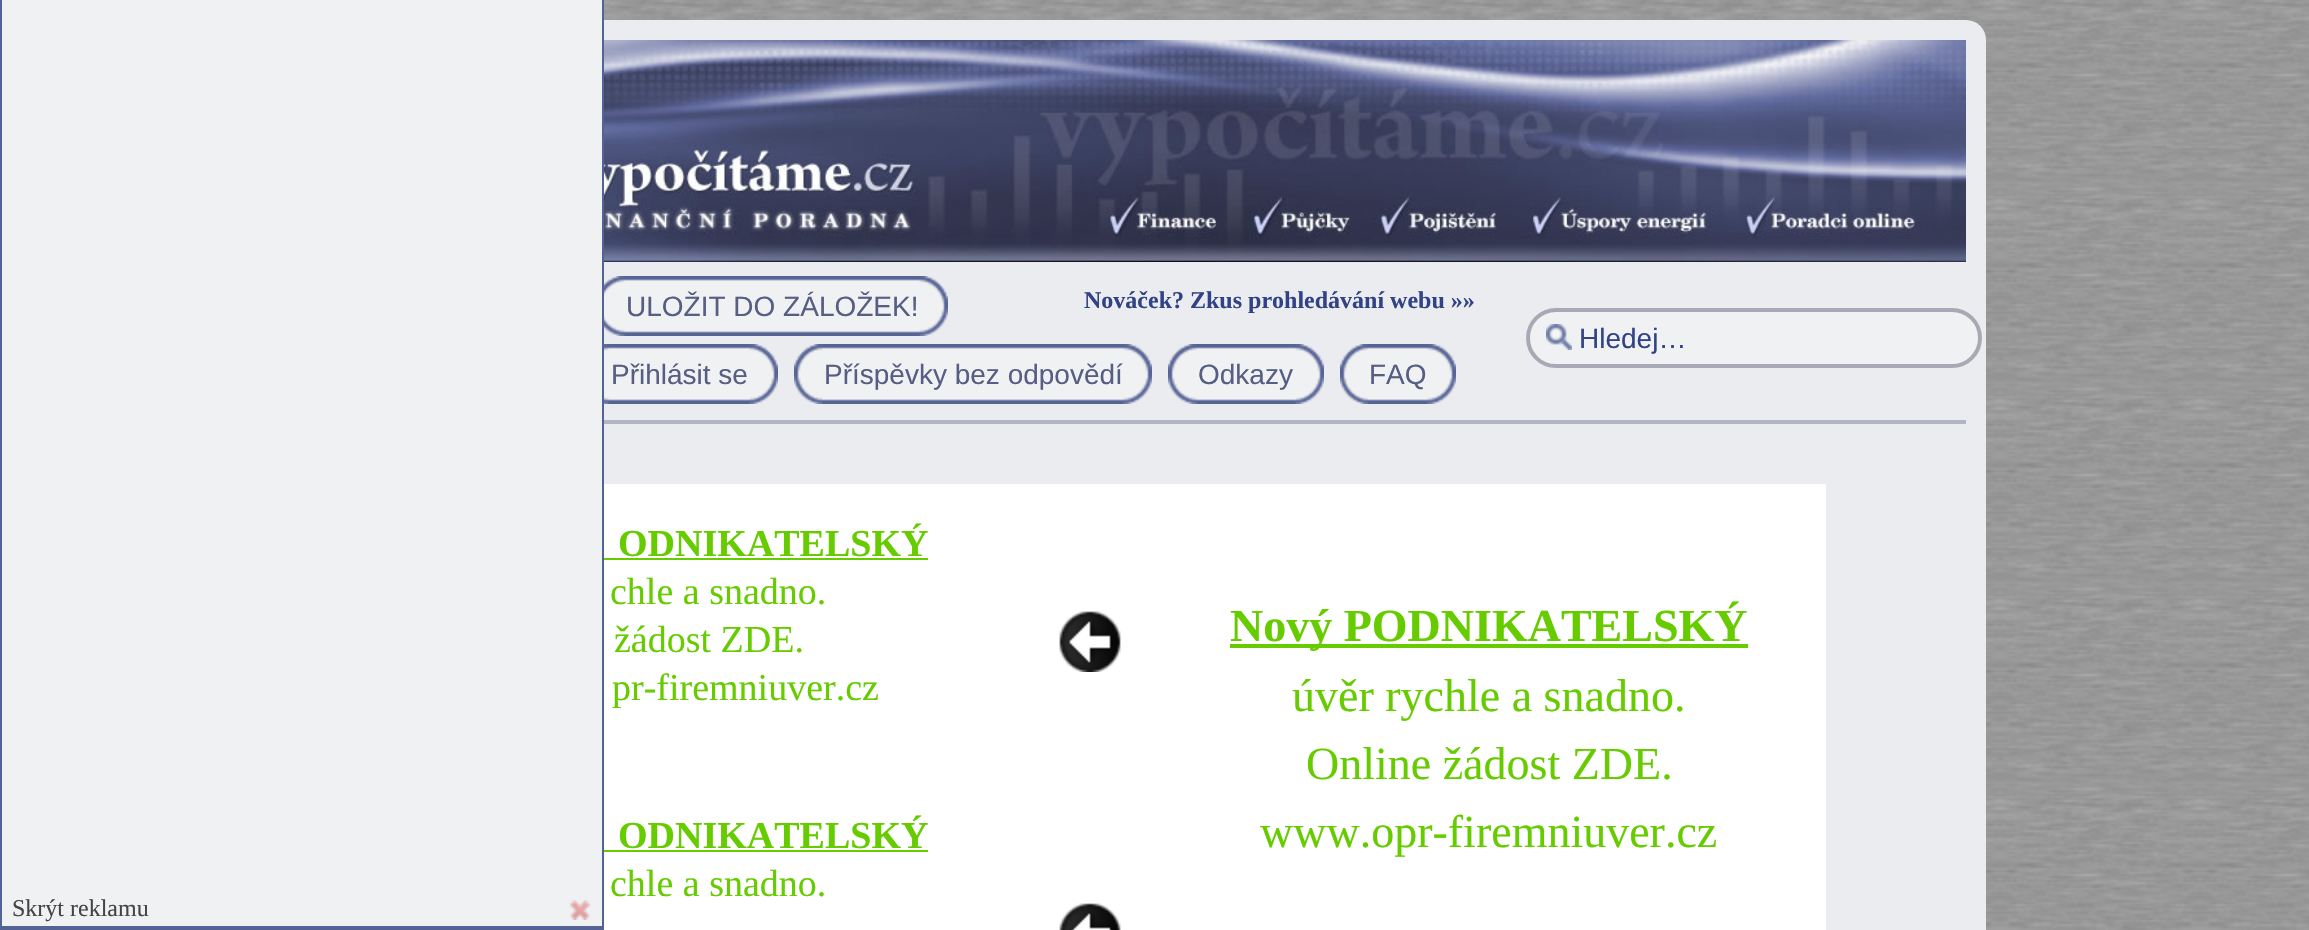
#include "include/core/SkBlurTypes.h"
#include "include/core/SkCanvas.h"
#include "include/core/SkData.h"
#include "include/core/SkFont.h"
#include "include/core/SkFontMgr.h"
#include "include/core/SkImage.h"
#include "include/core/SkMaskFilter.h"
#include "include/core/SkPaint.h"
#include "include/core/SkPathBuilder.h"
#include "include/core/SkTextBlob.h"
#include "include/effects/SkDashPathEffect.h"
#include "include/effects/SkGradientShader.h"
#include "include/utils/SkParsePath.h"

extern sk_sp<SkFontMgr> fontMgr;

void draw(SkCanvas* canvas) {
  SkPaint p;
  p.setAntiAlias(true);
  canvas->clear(SK_ColorWHITE);
  canvas->drawImageRect(SkImages::DeferredFromEncodedData(SkData::MakeFromFileName("images/1.png")), SkRect::MakeLTRB(604, 0, 2309, 930), SkSamplingOptions());
  p.setColor(SkColorSetRGB(235, 236, 239));
  canvas->drawRoundRect(SkRect::MakeLTRB(326, 20, 1986, 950), 20, 20, p);
  p.setColor(SkColorSetRGB(178, 182, 196));
  canvas->drawRect(SkRect::MakeLTRB(604, 420, 1966, 424), p);
  canvas->drawImageRect(SkImages::DeferredFromEncodedData(SkData::MakeFromFileName("images/2.png")), SkRect::MakeLTRB(604, 40, 1966, 262), SkSamplingOptions());
  canvas->drawImageRect(SkImages::DeferredFromEncodedData(SkData::MakeFromFileName("images/3.png")), SkRect::MakeLTRB(604, 276, 918, 336), SkSamplingOptions());
  canvas->drawImageRect(SkImages::DeferredFromEncodedData(SkData::MakeFromFileName("images/4.png")), SkRect::MakeLTRB(918, 276, 948, 336), SkSamplingOptions());
  canvas->drawImageRect(SkImages::DeferredFromEncodedData(SkData::MakeFromFileName("images/5.png")), SkRect::MakeLTRB(604, 344, 748, 404), SkSamplingOptions());
  canvas->drawImageRect(SkImages::DeferredFromEncodedData(SkData::MakeFromFileName("images/4.png")), SkRect::MakeLTRB(748, 344, 778, 404), SkSamplingOptions());
  canvas->drawImageRect(SkImages::DeferredFromEncodedData(SkData::MakeFromFileName("images/6.png")), SkRect::MakeLTRB(794, 344, 1122, 404), SkSamplingOptions());
  canvas->drawImageRect(SkImages::DeferredFromEncodedData(SkData::MakeFromFileName("images/4.png")), SkRect::MakeLTRB(1122, 344, 1152, 404), SkSamplingOptions());
  canvas->drawImageRect(SkImages::DeferredFromEncodedData(SkData::MakeFromFileName("images/7.png")), SkRect::MakeLTRB(1168, 344, 1294, 404), SkSamplingOptions());
  canvas->drawImageRect(SkImages::DeferredFromEncodedData(SkData::MakeFromFileName("images/4.png")), SkRect::MakeLTRB(1294, 344, 1324, 404), SkSamplingOptions());
  canvas->drawImageRect(SkImages::DeferredFromEncodedData(SkData::MakeFromFileName("images/8.png")), SkRect::MakeLTRB(1340, 344, 1426, 404), SkSamplingOptions());
  canvas->drawImageRect(SkImages::DeferredFromEncodedData(SkData::MakeFromFileName("images/4.png")), SkRect::MakeLTRB(1426, 344, 1456, 404), SkSamplingOptions());
  p.setColor(SkColorSetRGB(240, 241, 243));
  canvas->drawRoundRect(SkRect::MakeLTRB(1526, 308, 1982, 368), 30, 30, p);
  canvas->drawImageRect(SkImages::DeferredFromEncodedData(SkData::MakeFromFileName("images/9.png")), SkRect::MakeLTRB(1546, 324, 1572, 350), SkSamplingOptions());
  p.setStyle(SkPaint::kStroke_Style);
  p.setStrokeWidth(4);
  p.setColor(SkColorSetRGB(167, 170, 180));
  canvas->drawRoundRect(SkRect::MakeLTRB(1528, 310, 1980, 366), 28, 28, p);
  p.setStyle(SkPaint::kFill_Style);
  p.setColor(SK_ColorWHITE);
  canvas->drawRect(SkRect::MakeLTRB(604, 484, 1826, 930), p);
  p.setColor(SkColorSetRGB(102, 204, 0));
  canvas->drawRect(SkRect::MakeLTRB(604, 558, 928, 560), p);
  canvas->drawImageRect(SkImages::DeferredFromEncodedData(SkData::MakeFromFileName("images/10.png")), SkRect::MakeLTRB(1059, 611, 1121, 672), SkSamplingOptions());
  canvas->drawRect(SkRect::MakeLTRB(604, 850, 928, 852), p);
  canvas->drawImageRect(SkImages::DeferredFromEncodedData(SkData::MakeFromFileName("images/11.png")), SkRect::MakeLTRB(1059, 903, 1121, 930), SkSamplingOptions());
  canvas->drawRect(SkRect::MakeLTRB(1230, 644, 1748, 648), p);
  p.setColor(SkColorSetRGB(240, 241, 243));
  canvas->drawRect(SkRect::MakeLTRB(2, 0, 602, 926), p);
  p.setStyle(SkPaint::kStroke_Style);
  p.setStrokeWidth(2);
  p.setColor(SkColorSetRGB(84, 98, 149));
  canvas->drawRect(SkRect::MakeLTRB(1, -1, 603, 929), p);
  canvas->drawImageRect(SkImages::DeferredFromEncodedData(SkData::MakeFromFileName("images/12.png")), SkRect::MakeLTRB(570, 900, 591, 920), SkSamplingOptions());
  p.setStyle(SkPaint::kFill_Style);
  canvas->drawRect(SkRect::MakeLTRB(2, 926, 602, 928), p);
  SkFont font1(fontMgr->matchFamilyStyle("Liberation Sans", SkFontStyle::Normal()), 28);
  font1.setSubpixel(true);
  p.setColor(SkColorSetRGB(86, 95, 131));
  canvas->drawString("ULOŽIT DO ZÁLOŽEK!", 626, 316, font1, p);
  SkFont font2(fontMgr->matchFamilyStyle("Liberation Serif", SkFontStyle::Bold()), 24);
  font2.setSubpixel(true);
  p.setColor(SkColorSetRGB(49, 67, 132));
  canvas->drawString("Nováček? Zkus prohledávání webu »»", 1084, 308, font2, p);
  p.setColor(SkColorSetRGB(86, 95, 131));
  canvas->drawString("Přihlásit se", 611, 384, font1, p);
  canvas->drawString("Příspěvky bez odpovědí", 824, 384, font1, p);
  canvas->drawString("Odkazy", 1198, 384, font1, p);
  canvas->drawString("FAQ", 1369, 384, font1, p);
  p.setColor(SkColorSetRGB(49, 67, 132));
  canvas->drawString("Hledej…", 1579, 348, font1, p);
  SkFont font3(fontMgr->matchFamilyStyle("Liberation Serif", SkFontStyle::Bold()), 38);
  font3.setSubpixel(true);
  p.setColor(SkColorSetRGB(102, 204, 0));
  canvas->drawString("ODNIKATELSKÝ", 618, 556, font3, p);
  SkFont font4(fontMgr->matchFamilyStyle("Liberation Serif", SkFontStyle::Normal()), 38);
  font4.setSubpixel(true);
  canvas->drawString("chle a snadno.", 610, 604, font4, p);
  canvas->drawString("žádost ZDE.", 614, 652, font4, p);
  canvas->drawString("pr-firemniuver.cz", 612, 700, font4, p);
  canvas->drawString("ODNIKATELSKÝ", 618, 848, font3, p);
  canvas->drawString("chle a snadno.", 610, 896, font4, p);
  SkFont font5(fontMgr->matchFamilyStyle("Liberation Serif", SkFontStyle::Bold()), 46);
  font5.setSubpixel(true);
  canvas->drawString("Nový PODNIKATELSKÝ", 1230, 641, font5, p);
  SkFont font6(fontMgr->matchFamilyStyle("Liberation Serif", SkFontStyle::Normal()), 46);
  font6.setSubpixel(true);
  canvas->drawString("úvěr rychle a snadno.", 1292, 711, font6, p);
  canvas->drawString("Online žádost ZDE.", 1306, 779, font6, p);
  canvas->drawString("www.opr-firemniuver.cz", 1260, 847, font6, p);
  SkFont font7(fontMgr->matchFamilyStyle("Liberation Serif", SkFontStyle::Normal()), 24);
  font7.setSubpixel(true);
  p.setColor(SkColorSetRGB(68, 68, 68));
  canvas->drawString("Skrýt reklamu", 12, 916, font7, p);
}
